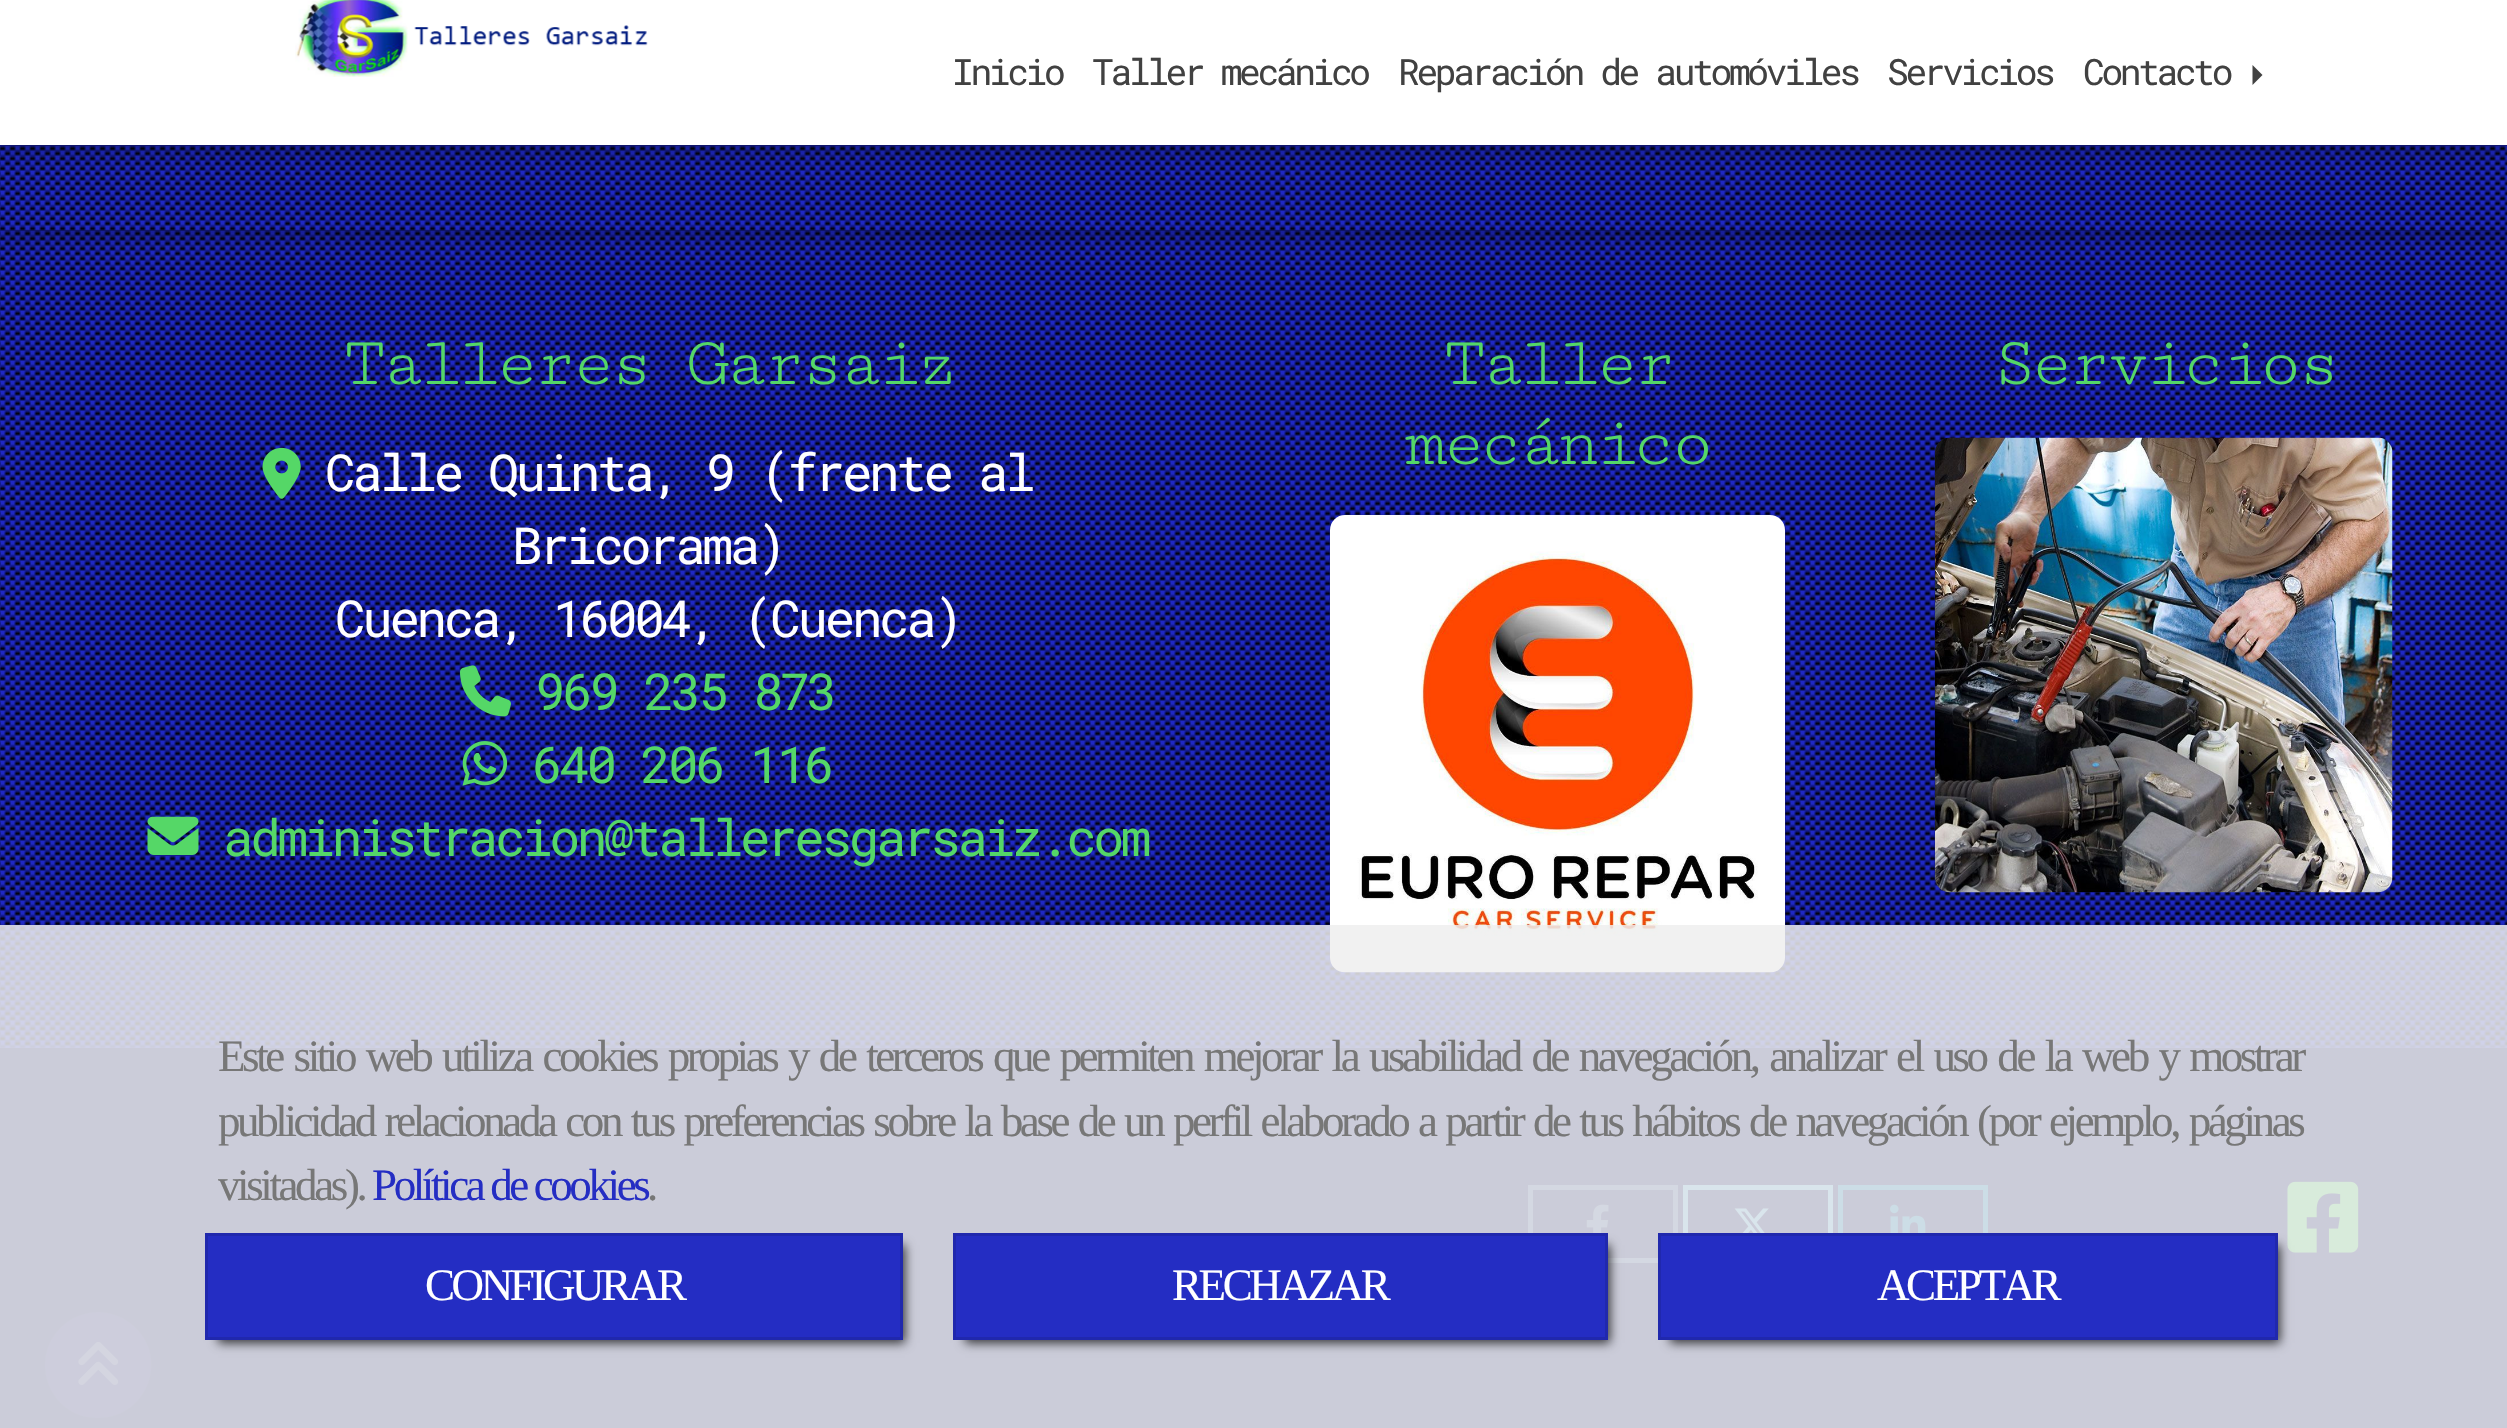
#include "include/core/SkBlurTypes.h"
#include "include/core/SkCanvas.h"
#include "include/core/SkData.h"
#include "include/core/SkFont.h"
#include "include/core/SkFontMgr.h"
#include "include/core/SkImage.h"
#include "include/core/SkMaskFilter.h"
#include "include/core/SkPaint.h"
#include "include/core/SkPathBuilder.h"
#include "include/core/SkTextBlob.h"
#include "include/effects/SkDashPathEffect.h"
#include "include/effects/SkGradientShader.h"
#include "include/utils/SkParsePath.h"

extern sk_sp<SkFontMgr> fontMgr;

void draw(SkCanvas* canvas) {
  SkPaint p;
  p.setAntiAlias(true);
  auto spacedText = [&](const char* s, float x, float y, const SkFont& font, const SkPaint& ink, float letter, float word) {
    std::vector<SkGlyphID> glyphs(font.countText(s, strlen(s), SkTextEncoding::kUTF8));
    std::vector<float> xs(glyphs.size());
    font.textToGlyphs(s, strlen(s), SkTextEncoding::kUTF8, glyphs);
    font.getXPos(glyphs, xs, x);
    float extra = 0;
    for (size_t i = 0; i < glyphs.size(); i++) {
      xs[i] += extra;
      extra += letter + word * (glyphs[i] == font.unicharToGlyph(' '));
    }
    canvas->drawTextBlob(SkTextBlob::MakeFromPosHGlyphs(glyphs, xs, y, font), 0, 0, ink);
  };
  canvas->clear(SkColorSetRGB(36, 45, 195));
  canvas->drawImageRect(SkImages::DeferredFromEncodedData(SkData::MakeFromFileName("images/2.png")), SkRect::MakeLTRB(0, 145, 2507, 1048), SkSamplingOptions());
  p.setColor(SkColorSetARGB(128, 0, 0, 0));
  p.setMaskFilter(SkMaskFilter::MakeBlur(kNormal_SkBlurStyle, 12.5f));
  canvas->drawRect(SkRect::MakeLTRB(0, 0, 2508, 145), p);
  p.setMaskFilter(nullptr);
  canvas->save();
  canvas->clipRect(SkRect::MakeLTRB(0, 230, 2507, 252));
  p.setMaskFilter(SkMaskFilter::MakeBlur(kNormal_SkBlurStyle, 12.5f));
  canvas->drawRect(SkRect::MakeLTRB(0, -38, 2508, 230), p);
  p.setMaskFilter(nullptr);
  canvas->restore();
  p.setColor(SK_ColorWHITE);
  canvas->drawRect(SkRect::MakeLTRB(0, 0, 2507, 145), p);
  canvas->drawImageRect(SkImages::DeferredFromEncodedData(SkData::MakeFromFileName("images/1.png")), SkRect::MakeLTRB(295, 0, 648, 77), SkSamplingOptions());
  p.setColor(SkColorSetRGB(65, 65, 65));
  canvas->drawPath(SkPathBuilder().moveTo(2252.5f, 85).lineTo(2252.5f, 65).lineTo(2262.5f, 75).close().detach(), p);
  canvas->drawImageRect(SkImages::DeferredFromEncodedData(SkData::MakeFromFileName("images/3.png")), SkRect::MakeLTRB(262, 447, 301, 499), SkSamplingOptions());
  canvas->drawImageRect(SkImages::DeferredFromEncodedData(SkData::MakeFromFileName("images/4.png")), SkRect::MakeLTRB(460, 665, 511, 717), SkSamplingOptions());
  canvas->drawImageRect(SkImages::DeferredFromEncodedData(SkData::MakeFromFileName("images/5.png")), SkRect::MakeLTRB(462, 741, 508, 786), SkSamplingOptions());
  canvas->drawImageRect(SkImages::DeferredFromEncodedData(SkData::MakeFromFileName("images/6.png")), SkRect::MakeLTRB(147, 816, 199, 855), SkSamplingOptions());
  canvas->drawImageRect(SkImages::DeferredFromEncodedData(SkData::MakeFromFileName("images/7.png")), SkRect::MakeLTRB(1330, 515, 1785, 973), SkSamplingOptions());
  canvas->drawImageRect(SkImages::DeferredFromEncodedData(SkData::MakeFromFileName("images/8.png")), SkRect::MakeLTRB(1935, 437, 2393, 893), SkSamplingOptions());
  p.setColor(SkColorSetRGB(0, 5, 89));
  canvas->drawRect(SkRect::MakeLTRB(0, 1048, 2507, 1428), p);
  p.setStyle(SkPaint::kStroke_Style);
  p.setStrokeWidth(5);
  p.setColor(SkColorSetRGB(58, 87, 149));
  canvas->drawRect(SkRect::MakeLTRB(1530.5f, 1187.5f, 1675.5f, 1260.5f), p);
  canvas->drawImageRect(SkImages::DeferredFromEncodedData(SkData::MakeFromFileName("images/9.png")), SkRect::MakeLTRB(1586, 1204, 1609, 1233), SkSamplingOptions());
  p.setColor(SkColorSetRGB(94, 169, 221));
  canvas->drawRect(SkRect::MakeLTRB(1685.5f, 1187.5f, 1830.5f, 1260.5f), p);
  canvas->drawImageRect(SkImages::DeferredFromEncodedData(SkData::MakeFromFileName("images/10.png")), SkRect::MakeLTRB(1734, 1208, 1769, 1233), SkSamplingOptions());
  p.setColor(SkColorSetRGB(2, 116, 179));
  canvas->drawRect(SkRect::MakeLTRB(1840.5f, 1187.5f, 1985.5f, 1260.5f), p);
  canvas->drawImageRect(SkImages::DeferredFromEncodedData(SkData::MakeFromFileName("images/11.png")), SkRect::MakeLTRB(1890, 1204, 1926, 1233), SkSamplingOptions());
  canvas->drawImageRect(SkImages::DeferredFromEncodedData(SkData::MakeFromFileName("images/12.png")), SkRect::MakeLTRB(2287, 1181, 2359, 1253), SkSamplingOptions());
  p.setStyle(SkPaint::kFill_Style);
  p.setColor(SkColorSetRGB(7, 13, 110));
  canvas->drawPath(SkPathBuilder().moveTo(98, 1418).cubicTo(149, 1418, 171, 1354, 130, 1323).cubicTo(121, 1316, 110, 1312, 98, 1312).cubicTo(87, 1312, 75, 1316, 66, 1323).cubicTo(26, 1354, 47, 1418, 98, 1418).close().detach(), p);
  canvas->drawImageRect(SkImages::DeferredFromEncodedData(SkData::MakeFromFileName("images/13.png")), SkRect::MakeLTRB(78, 1342, 119, 1385), SkSamplingOptions());
  p.setColor(SkColorSetARGB(217, 238, 238, 238));
  canvas->drawRect(SkRect::MakeLTRB(0, 925, 2507, 1428), p);
  p.setColor(SkColorSetARGB(191, 0, 0, 0));
  p.setMaskFilter(SkMaskFilter::MakeBlur(kNormal_SkBlurStyle, 5));
  canvas->drawRect(SkRect::MakeLTRB(218, 1245, 905, 1343), p);
  p.setMaskFilter(nullptr);
  p.setColor(SkColorSetRGB(36, 45, 195));
  canvas->drawRect(SkRect::MakeLTRB(206.5f, 1234.5f, 901.5f, 1338.5f), p);
  p.setStyle(SkPaint::kStroke_Style);
  p.setStrokeWidth(3);
  p.setColor(SkColorSetRGB(32, 40, 173));
  canvas->drawRect(SkRect::MakeLTRB(206.5f, 1234.5f, 901.5f, 1338.5f), p);
  p.setStyle(SkPaint::kFill_Style);
  p.setColor(SkColorSetARGB(191, 0, 0, 0));
  p.setMaskFilter(SkMaskFilter::MakeBlur(kNormal_SkBlurStyle, 5));
  canvas->drawRect(SkRect::MakeLTRB(965, 1245, 1610, 1343), p);
  p.setMaskFilter(nullptr);
  p.setColor(SkColorSetRGB(36, 45, 195));
  canvas->drawRect(SkRect::MakeLTRB(954.5f, 1234.5f, 1606.5f, 1338.5f), p);
  p.setStyle(SkPaint::kStroke_Style);
  p.setColor(SkColorSetRGB(32, 40, 173));
  canvas->drawRect(SkRect::MakeLTRB(954.5f, 1234.5f, 1606.5f, 1338.5f), p);
  p.setStyle(SkPaint::kFill_Style);
  p.setColor(SkColorSetARGB(191, 0, 0, 0));
  p.setMaskFilter(SkMaskFilter::MakeBlur(kNormal_SkBlurStyle, 5));
  canvas->drawRect(SkRect::MakeLTRB(1670, 1245, 2280, 1343), p);
  p.setMaskFilter(nullptr);
  p.setColor(SkColorSetRGB(36, 45, 195));
  canvas->drawRect(SkRect::MakeLTRB(1659.5f, 1234.5f, 2276.5f, 1338.5f), p);
  p.setStyle(SkPaint::kStroke_Style);
  p.setColor(SkColorSetRGB(32, 40, 173));
  canvas->drawRect(SkRect::MakeLTRB(1659.5f, 1234.5f, 2276.5f, 1338.5f), p);
  SkFont font1(fontMgr->matchFamilyStyle("Roboto Mono", SkFontStyle::Normal()), 36.3f);
  font1.setSubpixel(true);
  p.setStyle(SkPaint::kFill_Style);
  p.setColor(SkColorSetRGB(65, 65, 65));
  spacedText("Inicio", 952, 85, font1, p, -3.4f, 0);
  spacedText("Taller mecánico", 1092, 85, font1, p, -3.4f, 0);
  spacedText("Reparación de automóviles", 1398, 85, font1, p, -3.4f, 0);
  spacedText("Servicios", 1887, 85, font1, p, -3.4f, 0);
  spacedText("Contacto", 2083, 85, font1, p, -3.4f, 0);
  SkFont font2(fontMgr->matchFamilyStyle("Cutive Mono", SkFontStyle::Normal()), 72.5f);
  font2.setSubpixel(true);
  p.setColor(SkColorSetRGB(85, 215, 103));
  spacedText("Talleres Garsaiz", 343, 384, font2, p, -5.75f, 0);
  SkFont font3(fontMgr->matchFamilyStyle("Roboto Mono", SkFontStyle::Normal()), 51);
  font3.setSubpixel(true);
  p.setColor(SK_ColorWHITE);
  spacedText("Calle Quinta, 9 (frente al", 325, 491, font3, p, -3.4f, 0);
  spacedText("Bricorama)", 512, 564, font3, p, -3.4f, 0);
  spacedText("Cuenca, 16004, (Cuenca)", 335, 637, font3, p, -3.4f, 0);
  p.setColor(SkColorSetRGB(85, 215, 103));
  spacedText("969 235 873", 535, 710, font3, p, -3.4f, 0);
  spacedText("640 206 116", 532, 783, font3, p, -3.4f, 0);
  spacedText("administracion@talleresgarsaiz.com", 223, 856, font3, p, -3.4f, 0);
  spacedText("Taller", 1443, 384, font2, p, -5.75f, 0);
  spacedText("mecánico", 1404, 464, font2, p, -5.75f, 0);
  spacedText("Servicios", 1992, 384, font2, p, -5.75f, 0);
  SkFont font4(fontMgr->matchFamilyStyle("Liberation Serif", SkFontStyle::Normal()), 45);
  font4.setSubpixel(true);
  p.setColor(SkColorSetRGB(119, 119, 119));
  spacedText("Este sitio web utiliza cookies propias y de terceros que permiten mejorar la usabilidad de navegación, analizar el uso de la web y mostrar", 218, 1071, font4, p, -3.4f, 3.8f);
  spacedText("publicidad relacionada con tus preferencias sobre la base de un perfil elaborado a partir de tus hábitos de navegación (por ejemplo, páginas", 218, 1136, font4, p, -3.4f, 2.8f);
  spacedText("visitadas).", 218, 1200, font4, p, -3.4f, 0);
  p.setColor(SkColorSetRGB(36, 45, 195));
  spacedText("Política de cookies", 372, 1200, font4, p, -3.4f, 0);
  p.setColor(SkColorSetRGB(119, 119, 119));
  spacedText(".", 647, 1200, font4, p, -3.4f, 0);
  p.setColor(SK_ColorWHITE);
  spacedText("CONFIGURAR", 425, 1300, font4, p, -3.4f, 0);
  spacedText("RECHAZAR", 1172, 1300, font4, p, -3.4f, 0);
  spacedText("ACEPTAR", 1877, 1300, font4, p, -3.4f, 0);
}
